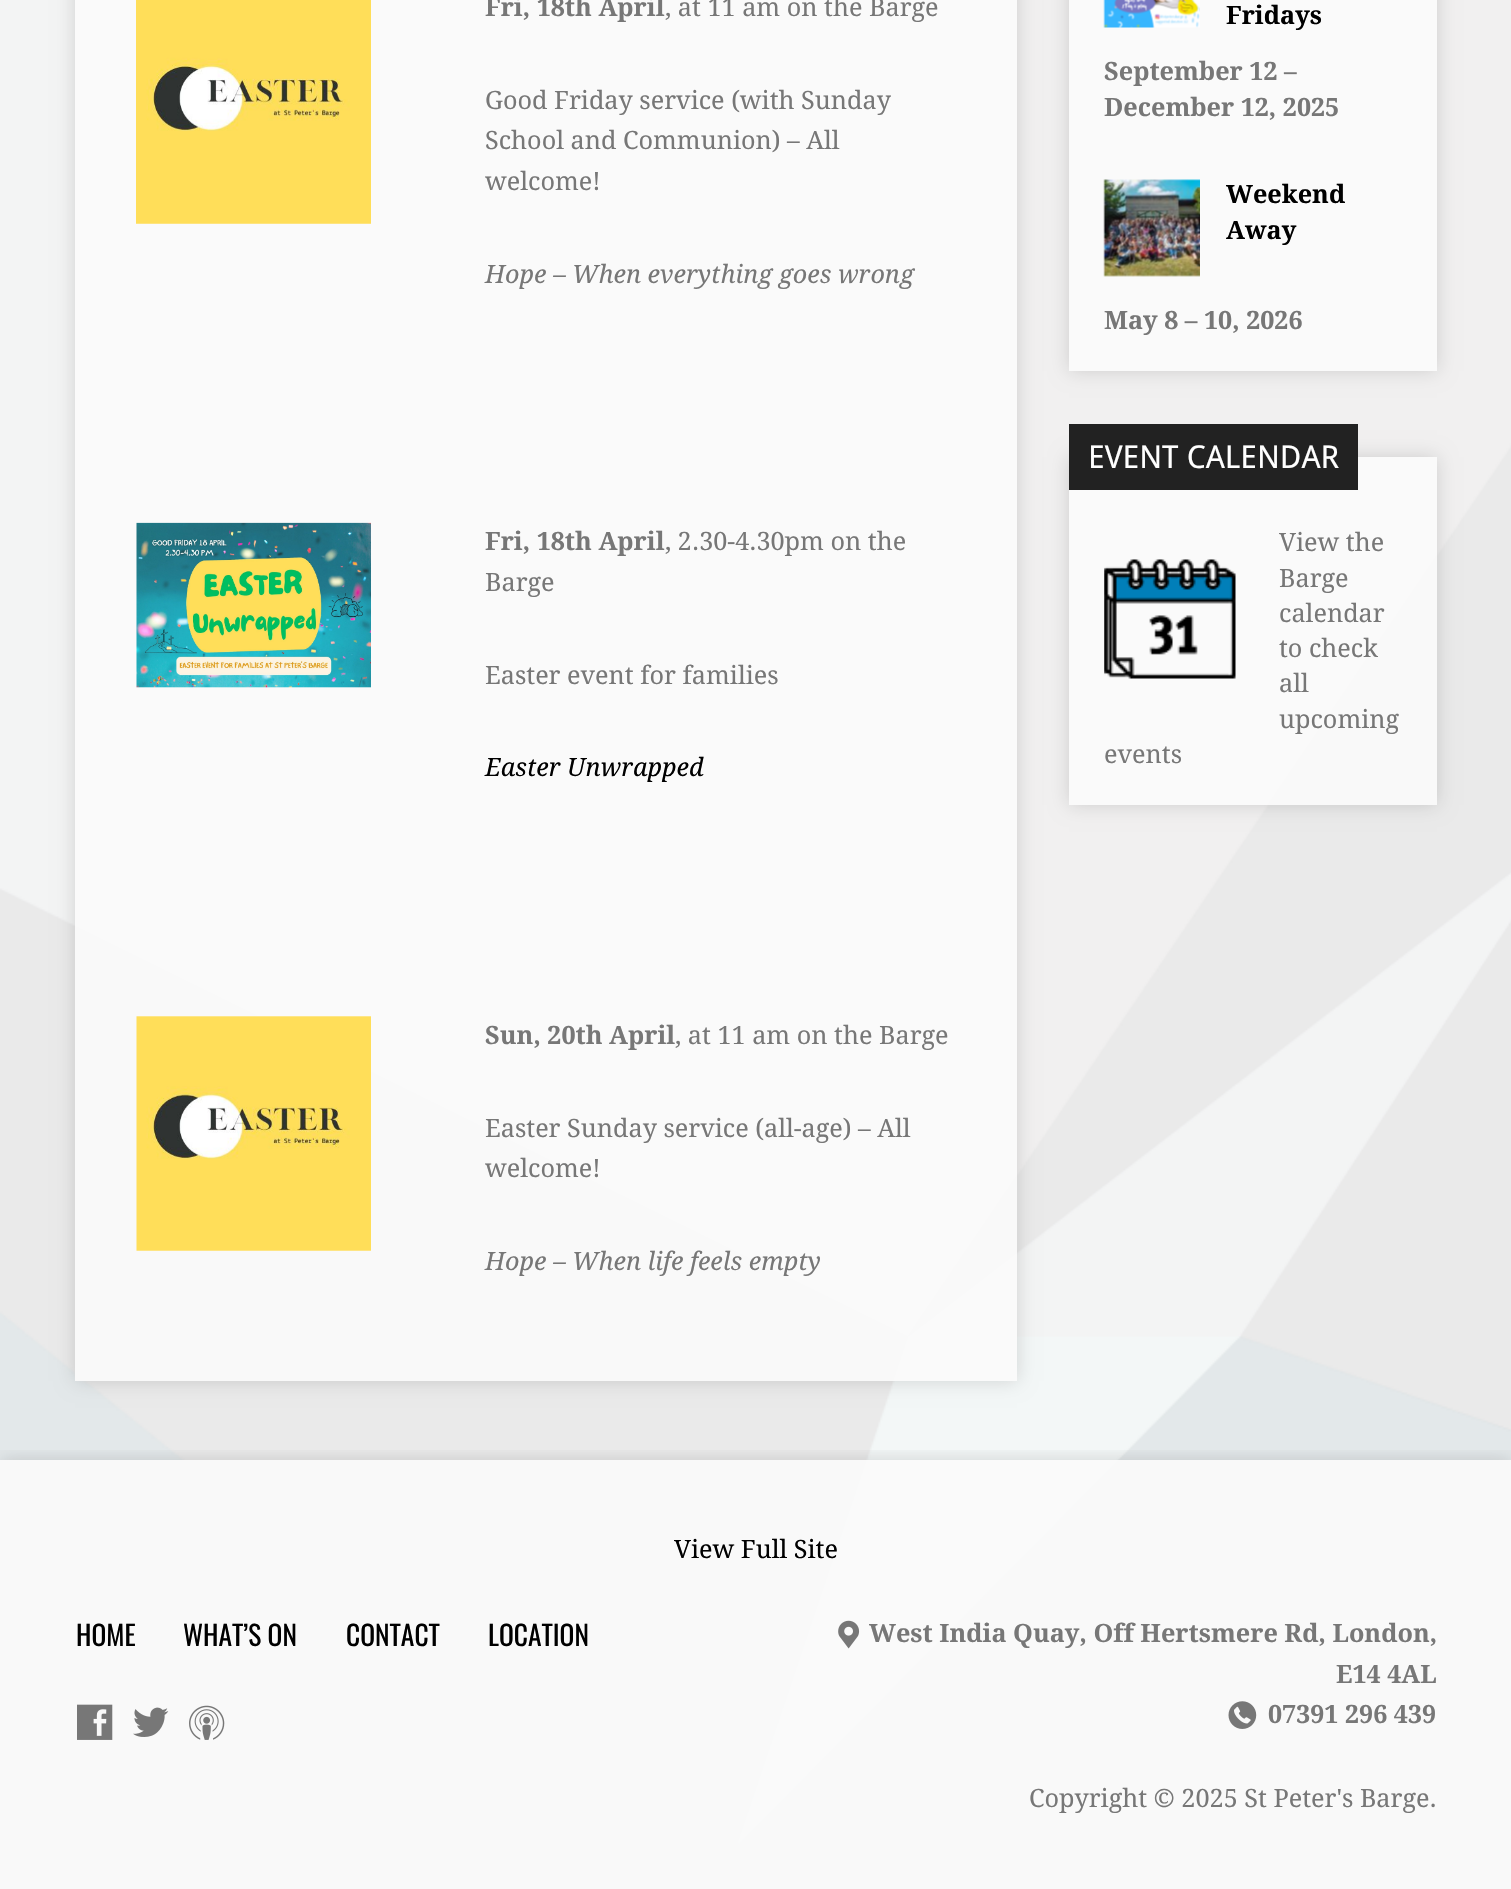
#include "include/core/SkBlurTypes.h"
#include "include/core/SkCanvas.h"
#include "include/core/SkData.h"
#include "include/core/SkFont.h"
#include "include/core/SkFontMgr.h"
#include "include/core/SkImage.h"
#include "include/core/SkMaskFilter.h"
#include "include/core/SkPaint.h"
#include "include/core/SkPathBuilder.h"
#include "include/core/SkTextBlob.h"
#include "include/effects/SkDashPathEffect.h"
#include "include/effects/SkGradientShader.h"
#include "include/utils/SkParsePath.h"

extern sk_sp<SkFontMgr> fontMgr;

void draw(SkCanvas* canvas) {
  SkPaint p;
  p.setAntiAlias(true);
  canvas->clear(SkColorSetRGB(230, 233, 235));
  canvas->drawImageRect(SkImages::DeferredFromEncodedData(SkData::MakeFromFileName("images/1.png")), SkRect::MakeLTRB(0, 0, 1511, 1844), SkSamplingOptions());
  canvas->save();
  canvas->clipPath(SkPathBuilder(SkPathFillType::kEvenOdd).moveTo(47, 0).lineTo(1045, 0).lineTo(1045, 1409).lineTo(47, 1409).close().moveTo(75, -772).lineTo(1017, -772).lineTo(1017, 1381).lineTo(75, 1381).close().detach(), true);
  p.setColor(SkColorSetARGB(38, 0, 0, 0));
  p.setMaskFilter(SkMaskFilter::MakeBlur(kNormal_SkBlurStyle, 9));
  canvas->drawRect(SkRect::MakeLTRB(75, -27, 1017, 1381), p);
  p.setMaskFilter(nullptr);
  canvas->restore();
  p.setColor(SkColorSetARGB(240, 250, 250, 250));
  canvas->drawRect(SkRect::MakeLTRB(75, 0, 1017, 1381), p);
  canvas->drawImageRect(SkImages::DeferredFromEncodedData(SkData::MakeFromFileName("images/2.png")), SkRect::MakeLTRB(136, 0, 371, 224), SkSamplingOptions());
  canvas->drawImageRect(SkImages::DeferredFromEncodedData(SkData::MakeFromFileName("images/3.png")), SkRect::MakeLTRB(136, 522, 371, 688), SkSamplingOptions());
  canvas->drawImageRect(SkImages::DeferredFromEncodedData(SkData::MakeFromFileName("images/4.png")), SkRect::MakeLTRB(136, 1016, 371, 1251), SkSamplingOptions());
  canvas->save();
  canvas->clipPath(SkPathBuilder(SkPathFillType::kEvenOdd).moveTo(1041, 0).lineTo(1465, 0).lineTo(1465, 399).lineTo(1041, 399).close().moveTo(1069, -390).lineTo(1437, -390).lineTo(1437, 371).lineTo(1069, 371).close().detach(), true);
  p.setColor(SkColorSetARGB(38, 0, 0, 0));
  p.setMaskFilter(SkMaskFilter::MakeBlur(kNormal_SkBlurStyle, 9));
  canvas->drawRect(SkRect::MakeLTRB(1069, -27, 1437, 371), p);
  p.setMaskFilter(nullptr);
  canvas->restore();
  p.setColor(SkColorSetARGB(240, 250, 250, 250));
  canvas->drawRect(SkRect::MakeLTRB(1069, 0, 1437, 371), p);
  canvas->drawImageRect(SkImages::DeferredFromEncodedData(SkData::MakeFromFileName("images/5.png")), SkRect::MakeLTRB(1103, 0, 1200, 28), SkSamplingOptions());
  canvas->drawImageRect(SkImages::DeferredFromEncodedData(SkData::MakeFromFileName("images/6.png")), SkRect::MakeLTRB(1103, 179, 1200, 277), SkSamplingOptions());
  canvas->save();
  canvas->clipPath(SkPathBuilder(SkPathFillType::kEvenOdd).moveTo(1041, 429).lineTo(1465, 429).lineTo(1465, 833).lineTo(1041, 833).close().moveTo(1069, 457).lineTo(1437, 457).lineTo(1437, 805).lineTo(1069, 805).close().detach(), true);
  p.setColor(SkColorSetARGB(38, 0, 0, 0));
  p.setMaskFilter(SkMaskFilter::MakeBlur(kNormal_SkBlurStyle, 9));
  canvas->drawRect(SkRect::MakeLTRB(1069, 457, 1437, 805), p);
  p.setMaskFilter(nullptr);
  canvas->restore();
  p.setColor(SkColorSetARGB(240, 250, 250, 250));
  canvas->drawRect(SkRect::MakeLTRB(1069, 457, 1437, 805), p);
  p.setColor(SkColorSetRGB(34, 34, 34));
  canvas->drawRect(SkRect::MakeLTRB(1069, 424, 1358, 490), p);
  canvas->drawImageRect(SkImages::DeferredFromEncodedData(SkData::MakeFromFileName("images/7.png")), SkRect::MakeLTRB(1104, 559, 1236, 679), SkSamplingOptions());
  canvas->save();
  canvas->clipRect(SkRect::MakeLTRB(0, 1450, 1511, 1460));
  p.setColor(SkColorSetARGB(38, 0, 0, 0));
  p.setMaskFilter(SkMaskFilter::MakeBlur(kNormal_SkBlurStyle, 9));
  canvas->drawRect(SkRect::MakeLTRB(0, 1460, 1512, 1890), p);
  p.setMaskFilter(nullptr);
  canvas->restore();
  p.setColor(SkColorSetARGB(240, 250, 250, 250));
  canvas->drawRect(SkRect::MakeLTRB(0, 1460, 1511, 1889), p);
  canvas->drawImageRect(SkImages::DeferredFromEncodedData(SkData::MakeFromFileName("images/8.png")), SkRect::MakeLTRB(77, 1704, 113, 1740), SkSamplingOptions());
  canvas->drawImageRect(SkImages::DeferredFromEncodedData(SkData::MakeFromFileName("images/9.png")), SkRect::MakeLTRB(133, 1707, 169, 1737), SkSamplingOptions());
  canvas->drawImageRect(SkImages::DeferredFromEncodedData(SkData::MakeFromFileName("images/10.png")), SkRect::MakeLTRB(189, 1705, 225, 1740), SkSamplingOptions());
  canvas->drawImageRect(SkImages::DeferredFromEncodedData(SkData::MakeFromFileName("images/11.png")), SkRect::MakeLTRB(838, 1620, 860, 1649), SkSamplingOptions());
  canvas->drawImageRect(SkImages::DeferredFromEncodedData(SkData::MakeFromFileName("images/12.png")), SkRect::MakeLTRB(1228, 1701, 1257, 1729), SkSamplingOptions());
  SkFont font1(fontMgr->matchFamilyStyle("Droid Serif", SkFontStyle::Bold()), 25.2f);
  font1.setSubpixel(true);
  p.setColor(SkColorSetRGB(119, 119, 119));
  canvas->drawString("Fri, 18th April", 485, 16, font1, p);
  SkFont font2(fontMgr->matchFamilyStyle("Droid Serif", SkFontStyle::Normal()), 25.2f);
  font2.setSubpixel(true);
  canvas->drawString(", at 11 am on the Barge", 665, 16, font2, p);
  canvas->drawString("Good Friday service (with Sunday", 485, 109, font2, p);
  canvas->drawString("School and Communion) – All", 485, 149, font2, p);
  canvas->drawString("welcome!", 485, 190, font2, p);
  SkFont font3(fontMgr->matchFamilyStyle("Droid Serif", SkFontStyle::Italic()), 25.2f);
  font3.setSubpixel(true);
  canvas->drawString("Hope – When everything goes wrong", 485, 283, font3, p);
  canvas->drawString("Fri, 18th April", 485, 550, font1, p);
  canvas->drawString(", 2.30-4.30pm on the", 665, 550, font2, p);
  canvas->drawString("Barge", 485, 591, font2, p);
  canvas->drawString("Easter event for families", 485, 684, font2, p);
  p.setColor(SK_ColorBLACK);
  canvas->drawString("Easter Unwrapped", 485, 776, font3, p);
  p.setColor(SkColorSetRGB(119, 119, 119));
  canvas->drawString("Sun, 20th April", 485, 1044, font1, p);
  canvas->drawString(", at 11 am on the Barge", 675, 1044, font2, p);
  canvas->drawString("Easter Sunday service (all-age) – All", 485, 1137, font2, p);
  canvas->drawString("welcome!", 485, 1177, font2, p);
  canvas->drawString("Hope – When life feels empty", 485, 1270, font3, p);
  p.setColor(SK_ColorBLACK);
  canvas->drawString("Fridays", 1226, 24, font1, p);
  p.setColor(SkColorSetRGB(119, 119, 119));
  canvas->drawString("September 12 –", 1104, 80, font1, p);
  canvas->drawString("December 12, 2025", 1104, 116, font1, p);
  p.setColor(SK_ColorBLACK);
  canvas->drawString("Weekend", 1226, 203, font1, p);
  canvas->drawString("Away", 1226, 239, font1, p);
  p.setColor(SkColorSetRGB(119, 119, 119));
  canvas->drawString("May 8 – 10, 2026", 1104, 329, font1, p);
  SkFont font4(fontMgr->matchFamilyStyle("Droid Sans", SkFontStyle::Normal()), 31.5f);
  font4.setSubpixel(true);
  p.setColor(SK_ColorWHITE);
  canvas->drawString("EVENT CALENDAR", 1088, 468, font4, p);
  p.setColor(SkColorSetRGB(119, 119, 119));
  canvas->drawString("View the", 1279, 551, font2, p);
  canvas->drawString("Barge", 1279, 587, font2, p);
  canvas->drawString("calendar", 1279, 622, font2, p);
  canvas->drawString("to check", 1279, 657, font2, p);
  canvas->drawString("all", 1279, 692, font2, p);
  canvas->drawString("upcoming", 1279, 728, font2, p);
  canvas->drawString("events", 1104, 763, font2, p);
  p.setColor(SK_ColorBLACK);
  canvas->drawString("View Full Site", 674, 1558, font2, p);
  SkFont font5(fontMgr->matchFamilyStyle("Oswald", SkFontStyle::Normal()), 27.5f);
  font5.setSubpixel(true);
  canvas->drawString("HOME", 76, 1646, font5, p);
  canvas->drawString("WHAT’S ON", 183, 1646, font5, p);
  canvas->drawString("CONTACT", 346, 1646, font5, p);
  canvas->drawString("LOCATION", 488, 1646, font5, p);
  p.setColor(SkColorSetRGB(119, 119, 119));
  canvas->drawString("West India Quay, Off Hertsmere Rd, London,", 869, 1642, font1, p);
  canvas->drawString("E14 4AL", 1336, 1683, font1, p);
  canvas->drawString("07391 296 439", 1268, 1723, font1, p);
  canvas->drawString("Copyright © 2025 St Peter's Barge.", 1029, 1807, font2, p);
}
